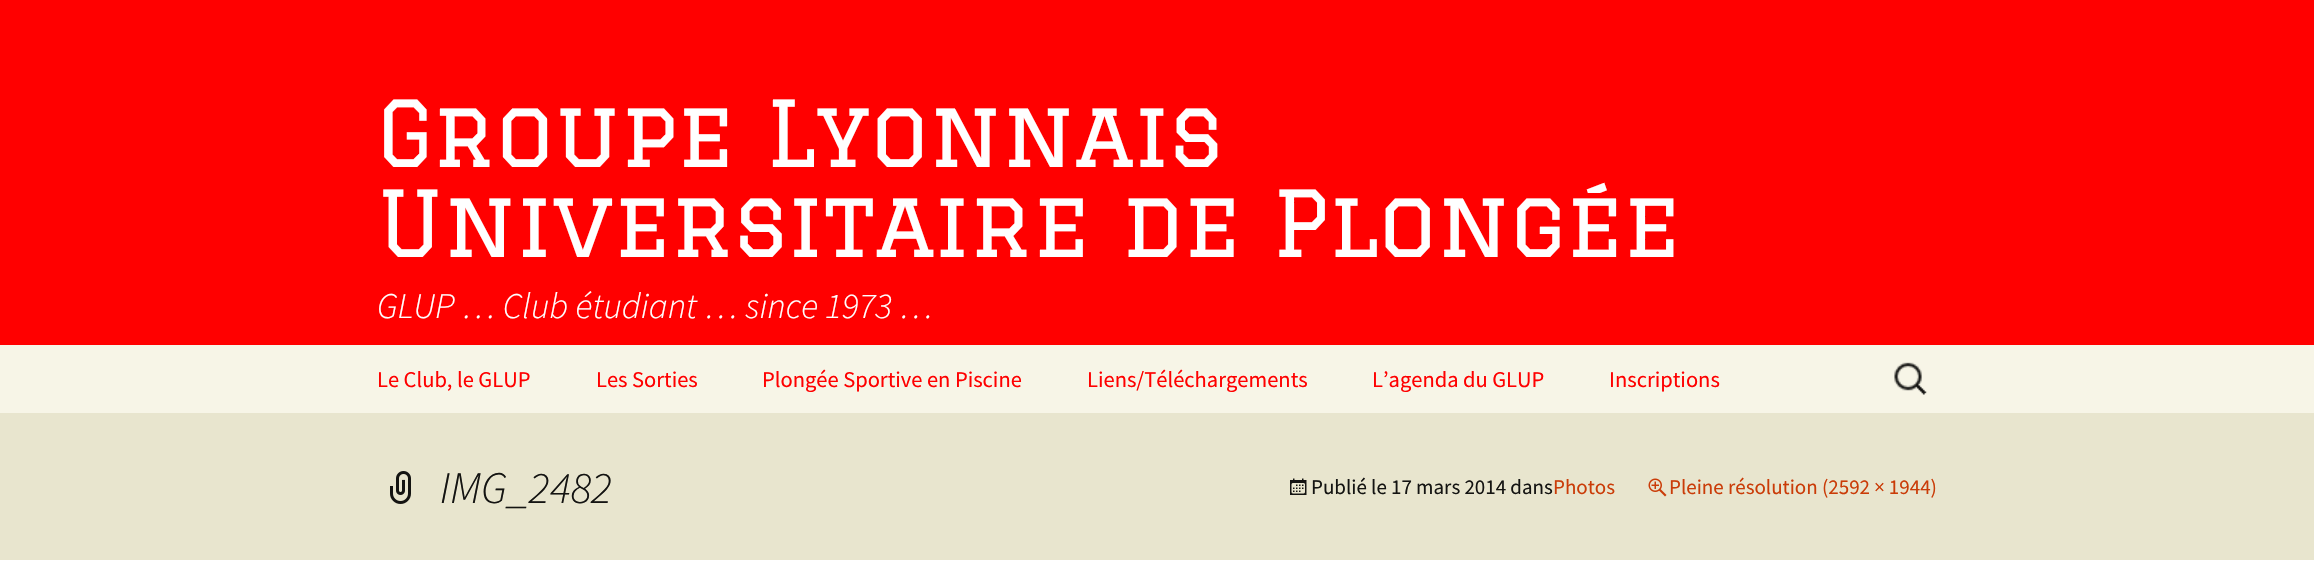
#include "include/core/SkBlurTypes.h"
#include "include/core/SkCanvas.h"
#include "include/core/SkData.h"
#include "include/core/SkFont.h"
#include "include/core/SkFontMgr.h"
#include "include/core/SkImage.h"
#include "include/core/SkMaskFilter.h"
#include "include/core/SkPaint.h"
#include "include/core/SkPathBuilder.h"
#include "include/core/SkTextBlob.h"
#include "include/effects/SkDashPathEffect.h"
#include "include/effects/SkGradientShader.h"
#include "include/utils/SkParsePath.h"

extern sk_sp<SkFontMgr> fontMgr;

void draw(SkCanvas* canvas) {
  SkPaint p;
  p.setAntiAlias(true);
  canvas->clear(SkColorSetRGB(255, 0, 0));
  p.setColor(SkColorSetRGB(247, 245, 231));
  canvas->drawRect(SkRect::MakeLTRB(0, 345, 2314, 413), p);
  canvas->drawImageRect(SkImages::DeferredFromEncodedData(SkData::MakeFromFileName("images/1.png")), SkRect::MakeLTRB(1894, 362, 1927, 395), SkSamplingOptions());
  p.setColor(SkColorSetRGB(232, 229, 206));
  canvas->drawRect(SkRect::MakeLTRB(0, 413, 2314, 560), p);
  canvas->drawImageRect(SkImages::DeferredFromEncodedData(SkData::MakeFromFileName("images/2.png")), SkRect::MakeLTRB(390, 471, 411, 504), SkSamplingOptions());
  canvas->drawImageRect(SkImages::DeferredFromEncodedData(SkData::MakeFromFileName("images/3.png")), SkRect::MakeLTRB(1290, 478, 1307, 495), SkSamplingOptions());
  canvas->drawImageRect(SkImages::DeferredFromEncodedData(SkData::MakeFromFileName("images/4.png")), SkRect::MakeLTRB(1648, 478, 1667, 497), SkSamplingOptions());
  p.setColor(SK_ColorWHITE);
  canvas->drawRect(SkRect::MakeLTRB(0, 560, 2314, 566), p);
  SkFont font1(fontMgr->matchFamilyStyle("Graduate", SkFontStyle::Normal()), 90);
  font1.setSubpixel(true);
  canvas->drawString("Groupe Lyonnais", 377, 167, font1, p);
  canvas->drawString("Universitaire de Plongée", 377, 257, font1, p);
  SkFont font2(fontMgr->matchFamilyStyle("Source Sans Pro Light", SkFontStyle(300, SkFontStyle::kNormal_Width, SkFontStyle::kItalic_Slant)), 36);
  font2.setSubpixel(true);
  canvas->drawString("GLUP … Club étudiant … since 1973 …", 377, 318, font2, p);
  SkFont font3(fontMgr->matchFamilyStyle("Source Sans Pro", SkFontStyle::Normal()), 22.5f);
  font3.setSubpixel(true);
  p.setColor(SkColorSetRGB(255, 0, 0));
  canvas->drawString("Le Club, le GLUP", 377, 387, font3, p);
  canvas->drawString("Les Sorties", 596, 387, font3, p);
  canvas->drawString("Plongée Sportive en Piscine", 762, 387, font3, p);
  canvas->drawString("Liens/Téléchargements", 1087, 387, font3, p);
  canvas->drawString("L’agenda du GLUP", 1372, 387, font3, p);
  canvas->drawString("Inscriptions", 1609, 387, font3, p);
  SkFont font4(fontMgr->matchFamilyStyle("Source Sans Pro Light", SkFontStyle(300, SkFontStyle::kNormal_Width, SkFontStyle::kItalic_Slant)), 45);
  font4.setSubpixel(true);
  p.setColor(SkColorSetRGB(20, 20, 18));
  canvas->drawString("IMG_2482", 440, 503, font4, p);
  SkFont font5(fontMgr->matchFamilyStyle("Source Sans Pro", SkFontStyle::Normal()), 21);
  font5.setSubpixel(true);
  canvas->drawString("Publié le 17 mars 2014 dans", 1311, 494, font5, p);
  p.setColor(SkColorSetRGB(202, 60, 8));
  canvas->drawString("Photos", 1553, 494, font5, p);
  canvas->drawString("Pleine résolution (2592 × 1944)", 1669, 494, font5, p);
}
